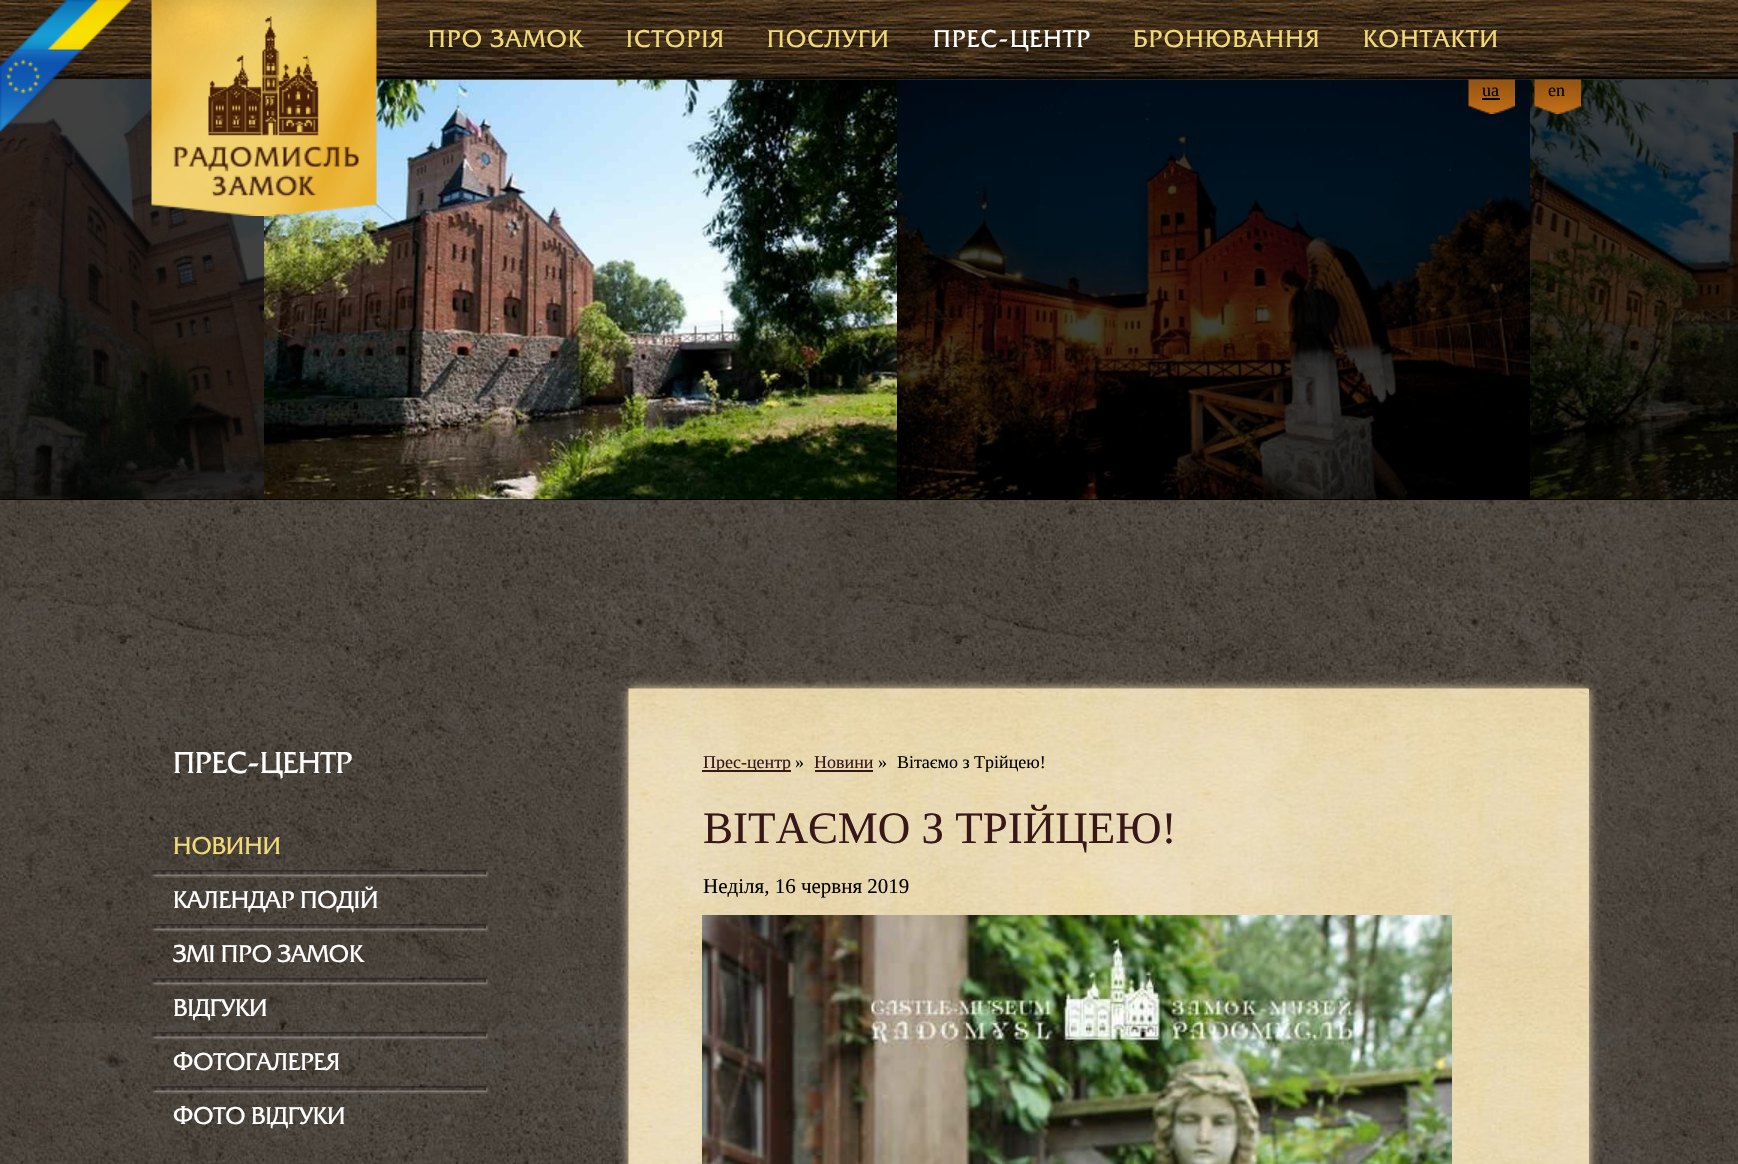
#include "include/core/SkBlurTypes.h"
#include "include/core/SkCanvas.h"
#include "include/core/SkData.h"
#include "include/core/SkFont.h"
#include "include/core/SkFontMgr.h"
#include "include/core/SkImage.h"
#include "include/core/SkMaskFilter.h"
#include "include/core/SkPaint.h"
#include "include/core/SkPathBuilder.h"
#include "include/core/SkTextBlob.h"
#include "include/effects/SkDashPathEffect.h"
#include "include/effects/SkGradientShader.h"
#include "include/utils/SkParsePath.h"

extern sk_sp<SkFontMgr> fontMgr;

void draw(SkCanvas* canvas) {
  SkPaint p;
  p.setAntiAlias(true);
  auto spacedText = [&](const char* s, float x, float y, const SkFont& font, const SkPaint& ink, float letter, float word) {
    std::vector<SkGlyphID> glyphs(font.countText(s, strlen(s), SkTextEncoding::kUTF8));
    std::vector<float> xs(glyphs.size());
    font.textToGlyphs(s, strlen(s), SkTextEncoding::kUTF8, glyphs);
    font.getXPos(glyphs, xs, x);
    float extra = 0;
    for (size_t i = 0; i < glyphs.size(); i++) {
      xs[i] += extra;
      extra += letter + word * (glyphs[i] == font.unicharToGlyph(' '));
    }
    canvas->drawTextBlob(SkTextBlob::MakeFromPosHGlyphs(glyphs, xs, y, font), 0, 0, ink);
  };
  canvas->clear(SK_ColorWHITE);
  canvas->drawImageRect(SkImages::DeferredFromEncodedData(SkData::MakeFromFileName("images/1.png")), SkRect::MakeLTRB(0, 79, 1738, 1164), SkSamplingOptions());
  canvas->drawImageRect(SkImages::DeferredFromEncodedData(SkData::MakeFromFileName("images/3.png")), SkRect::MakeLTRB(0, 0, 1738, 80), SkSamplingOptions());
  p.setColor(SK_ColorBLACK);
  canvas->drawRect(SkRect::MakeLTRB(0, 80, 1738, 500), p);
  canvas->drawImageRect(SkImages::DeferredFromEncodedData(SkData::MakeFromFileName("images/7.png")), SkRect::MakeLTRB(0, 79, 264, 500), SkSamplingOptions());
  canvas->drawImageRect(SkImages::DeferredFromEncodedData(SkData::MakeFromFileName("images/2.png")), SkRect::MakeLTRB(0, 0, 133, 133), SkSamplingOptions());
  canvas->drawImageRect(SkImages::DeferredFromEncodedData(SkData::MakeFromFileName("images/8.png")), SkRect::MakeLTRB(264, 79, 897, 500), SkSamplingOptions());
  canvas->drawImageRect(SkImages::DeferredFromEncodedData(SkData::MakeFromFileName("images/4.png")), SkRect::MakeLTRB(151, 0, 377, 216), SkSamplingOptions());
  canvas->drawImageRect(SkImages::DeferredFromEncodedData(SkData::MakeFromFileName("images/9.png")), SkRect::MakeLTRB(897, 79, 1530, 500), SkSamplingOptions());
  canvas->drawImageRect(SkImages::DeferredFromEncodedData(SkData::MakeFromFileName("images/5.png")), SkRect::MakeLTRB(1468, 79, 1515, 114), SkSamplingOptions());
  canvas->drawRect(SkRect::MakeLTRB(1482, 98, 1500, 100), p);
  canvas->drawImageRect(SkImages::DeferredFromEncodedData(SkData::MakeFromFileName("images/10.png")), SkRect::MakeLTRB(1530, 79, 1738, 500), SkSamplingOptions());
  canvas->drawImageRect(SkImages::DeferredFromEncodedData(SkData::MakeFromFileName("images/6.png")), SkRect::MakeLTRB(1534, 79, 1581, 114), SkSamplingOptions());
  canvas->drawImageRect(SkImages::DeferredFromEncodedData(SkData::MakeFromFileName("images/11.png")), SkRect::MakeLTRB(151, 868, 489, 878), SkSamplingOptions());
  canvas->drawImageRect(SkImages::DeferredFromEncodedData(SkData::MakeFromFileName("images/12.png")), SkRect::MakeLTRB(151, 922, 489, 932), SkSamplingOptions());
  canvas->drawImageRect(SkImages::DeferredFromEncodedData(SkData::MakeFromFileName("images/13.png")), SkRect::MakeLTRB(151, 976, 489, 986), SkSamplingOptions());
  canvas->drawImageRect(SkImages::DeferredFromEncodedData(SkData::MakeFromFileName("images/14.png")), SkRect::MakeLTRB(151, 1030, 489, 1040), SkSamplingOptions());
  canvas->drawImageRect(SkImages::DeferredFromEncodedData(SkData::MakeFromFileName("images/15.png")), SkRect::MakeLTRB(151, 1084, 489, 1094), SkSamplingOptions());
  p.setColor(SkColorSetRGB(236, 218, 182));
  p.setMaskFilter(SkMaskFilter::MakeBlur(kNormal_SkBlurStyle, 5));
  canvas->drawRect(SkRect::MakeLTRB(629, 689, 1589, 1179), p);
  p.setMaskFilter(nullptr);
  p.setColor(SkColorSetRGB(235, 216, 175));
  canvas->drawRect(SkRect::MakeLTRB(1588, 689, 1589, 1164), p);
  canvas->drawImageRect(SkImages::DeferredFromEncodedData(SkData::MakeFromFileName("images/16.png")), SkRect::MakeLTRB(628, 688, 1589, 1164), SkSamplingOptions());
  p.setColor(SkColorSetRGB(55, 23, 23));
  canvas->drawRect(SkRect::MakeLTRB(702, 770, 791, 772), p);
  canvas->drawRect(SkRect::MakeLTRB(815, 770, 873, 772), p);
  canvas->drawImageRect(SkImages::DeferredFromEncodedData(SkData::MakeFromFileName("images/17.png")), SkRect::MakeLTRB(702, 915, 1452, 1164), SkSamplingOptions());
  SkFont font1(fontMgr->matchFamilyStyle("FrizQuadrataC", SkFontStyle::Normal()), 24);
  font1.setSubpixel(true);
  p.setColor(SkColorSetRGB(239, 218, 118));
  spacedText("ПРО ЗАМОК", 428, 47, font1, p, 1.5f, 0);
  spacedText("ІСТОРІЯ", 626, 47, font1, p, 1.5f, 0);
  spacedText("ПОСЛУГИ", 767, 47, font1, p, 1.5f, 0);
  p.setColor(SK_ColorWHITE);
  spacedText("ПРЕС-ЦЕНТР", 933, 47, font1, p, 1.5f, 0);
  p.setColor(SkColorSetRGB(239, 218, 118));
  spacedText("БРОНЮВАННЯ", 1133, 47, font1, p, 1.5f, 0);
  spacedText("КОНТАКТИ", 1363, 47, font1, p, 1.5f, 0);
  SkFont font2(fontMgr->matchFamilyStyle("Liberation Serif", SkFontStyle::Normal()), 18);
  font2.setSubpixel(true);
  p.setColor(SK_ColorBLACK);
  canvas->drawString("ua", 1482, 96, font2, p);
  canvas->drawString("en", 1548, 96, font2, p);
  SkFont font3(fontMgr->matchFamilyStyle("FrizQuadrataC", SkFontStyle::Normal()), 30);
  font3.setSubpixel(true);
  p.setColor(SK_ColorWHITE);
  canvas->drawString("ПРЕС-ЦЕНТР", 173, 773, font3, p);
  p.setColor(SkColorSetRGB(239, 218, 118));
  canvas->drawString("НОВИНИ", 173, 854, font1, p);
  p.setColor(SK_ColorWHITE);
  canvas->drawString("КАЛЕНДАР ПОДІЙ", 173, 908, font1, p);
  canvas->drawString("ЗМІ ПРО ЗАМОК", 173, 962, font1, p);
  canvas->drawString("ВІДГУКИ", 173, 1016, font1, p);
  canvas->drawString("ФОТОГАЛЕРЕЯ", 173, 1070, font1, p);
  canvas->drawString("ФОТО ВІДГУКИ", 173, 1124, font1, p);
  p.setColor(SkColorSetRGB(55, 23, 23));
  canvas->drawString("Прес-центр", 703, 768, font2, p);
  p.setColor(SK_ColorBLACK);
  canvas->drawString("»", 795, 768, font2, p);
  p.setColor(SkColorSetRGB(55, 23, 23));
  canvas->drawString("Новини", 814, 768, font2, p);
  p.setColor(SK_ColorBLACK);
  canvas->drawString("»", 878, 768, font2, p);
  canvas->drawString("Вітаємо з Трійцею!", 897, 768, font2, p);
  SkFont font4(fontMgr->matchFamilyStyle("Liberation Serif", SkFontStyle::Normal()), 45);
  font4.setSubpixel(true);
  p.setColor(SkColorSetRGB(55, 23, 23));
  canvas->drawString("ВІТАЄМО З ТРІЙЦЕЮ!", 703, 843, font4, p);
  SkFont font5(fontMgr->matchFamilyStyle("Liberation Serif", SkFontStyle::Normal()), 21);
  font5.setSubpixel(true);
  p.setColor(SK_ColorBLACK);
  canvas->drawString("Неділя, 16 червня 2019", 703, 893, font5, p);
}
